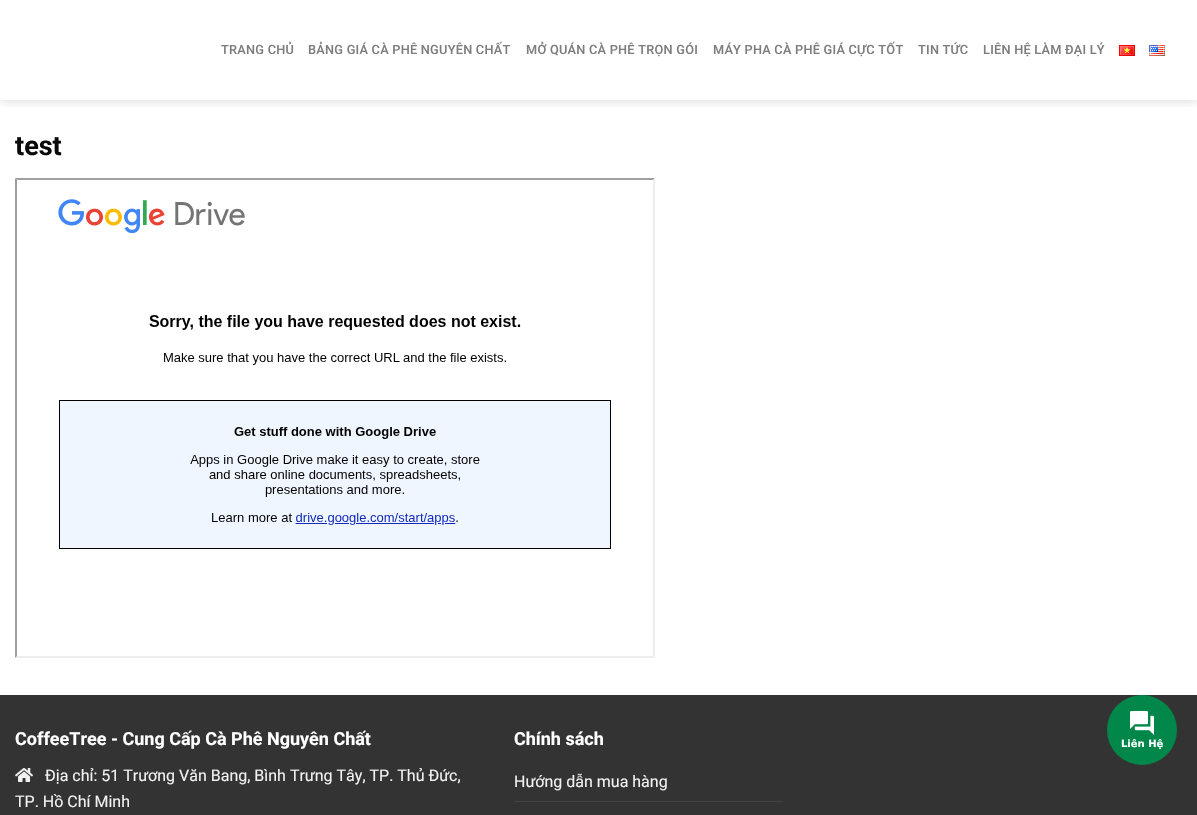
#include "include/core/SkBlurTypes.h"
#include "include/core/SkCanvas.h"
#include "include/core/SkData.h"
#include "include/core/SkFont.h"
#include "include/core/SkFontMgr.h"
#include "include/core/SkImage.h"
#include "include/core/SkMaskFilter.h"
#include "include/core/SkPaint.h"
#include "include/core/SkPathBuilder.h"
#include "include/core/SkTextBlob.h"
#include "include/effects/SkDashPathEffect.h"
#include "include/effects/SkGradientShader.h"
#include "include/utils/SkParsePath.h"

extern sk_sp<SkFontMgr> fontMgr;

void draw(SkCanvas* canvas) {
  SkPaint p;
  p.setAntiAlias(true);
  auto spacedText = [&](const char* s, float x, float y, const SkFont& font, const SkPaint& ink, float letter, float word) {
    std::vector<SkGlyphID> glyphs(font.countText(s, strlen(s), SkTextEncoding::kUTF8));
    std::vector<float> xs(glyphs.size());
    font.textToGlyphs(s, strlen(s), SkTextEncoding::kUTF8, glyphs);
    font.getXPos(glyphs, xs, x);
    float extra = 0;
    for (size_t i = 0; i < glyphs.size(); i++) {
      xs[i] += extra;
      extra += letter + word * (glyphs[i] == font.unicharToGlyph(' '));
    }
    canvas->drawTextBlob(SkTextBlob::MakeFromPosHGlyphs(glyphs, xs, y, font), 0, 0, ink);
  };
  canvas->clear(SK_ColorWHITE);
  canvas->save();
  canvas->clipRect(SkRect::MakeLTRB(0, 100, 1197, 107));
  p.setColor(SkColorSetARGB(38, 0, 0, 0));
  p.setMaskFilter(SkMaskFilter::MakeBlur(kNormal_SkBlurStyle, 5));
  canvas->drawRect(SkRect::MakeLTRB(1, 1, 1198, 101), p);
  p.setMaskFilter(nullptr);
  canvas->restore();
  canvas->drawImageRect(SkImages::DeferredFromEncodedData(SkData::MakeFromFileName("images/1.png")), SkRect::MakeLTRB(1119, 45, 1135, 56), SkSamplingOptions());
  canvas->drawImageRect(SkImages::DeferredFromEncodedData(SkData::MakeFromFileName("images/2.png")), SkRect::MakeLTRB(1149, 45, 1165, 56), SkSamplingOptions());
  p.setColor(SkColorSetRGB(159, 159, 159));
  canvas->drawPath(SkPathBuilder().moveTo(15, 178).lineTo(655, 178).lineTo(653, 180).lineTo(17, 180).close().detach(), p);
  p.setColor(SkColorSetRGB(238, 238, 238));
  canvas->drawPath(SkPathBuilder().moveTo(655, 178).lineTo(655, 658).lineTo(653, 656).lineTo(653, 180).close().detach(), p);
  canvas->drawPath(SkPathBuilder().moveTo(655, 658).lineTo(15, 658).lineTo(17, 656).lineTo(653, 656).close().detach(), p);
  p.setColor(SkColorSetRGB(159, 159, 159));
  canvas->drawPath(SkPathBuilder().moveTo(15, 658).lineTo(15, 178).lineTo(17, 180).lineTo(17, 656).close().detach(), p);
  canvas->drawImageRect(SkImages::DeferredFromEncodedData(SkData::MakeFromFileName("images/3.png")), SkRect::MakeLTRB(58, 199, 611, 549), SkSamplingOptions());
  p.setColor(SkColorSetRGB(51, 51, 51));
  canvas->drawRect(SkRect::MakeLTRB(0, 695, 1197, 815), p);
  canvas->drawImageRect(SkImages::DeferredFromEncodedData(SkData::MakeFromFileName("images/4.png")), SkRect::MakeLTRB(15, 768, 33, 782), SkSamplingOptions());
  p.setColor(SkColorSetRGB(67, 67, 67));
  canvas->drawRect(SkRect::MakeLTRB(514, 801, 783, 802), p);
  p.setColor(SkColorSetRGB(0, 135, 73));
  canvas->drawCircle(1142, 730, 35, p);
  canvas->drawImageRect(SkImages::DeferredFromEncodedData(SkData::MakeFromFileName("images/5.png")), SkRect::MakeLTRB(1130, 711, 1154, 735), SkSamplingOptions());
  SkFont font1(fontMgr->matchFamilyStyle("Roboto", SkFontStyle(500, SkFontStyle::kNormal_Width, SkFontStyle::kUpright_Slant)), 12.75f);
  font1.setSubpixel(true);
  p.setColor(SkColorSetRGB(125, 125, 125));
  spacedText("TRANG CHỦ", 221, 54, font1, p, 0.25f, 0);
  spacedText("BẢNG GIÁ CÀ PHÊ NGUYÊN CHẤT", 308, 54, font1, p, 0.25f, 0);
  spacedText("MỞ QUÁN CÀ PHÊ TRỌN GÓI", 526, 54, font1, p, 0.25f, 0);
  spacedText("MÁY PHA CÀ PHÊ GIÁ CỰC TỐT", 713, 54, font1, p, 0.25f, 0);
  spacedText("TIN TỨC", 918, 54, font1, p, 0.25f, 0);
  spacedText("LIÊN HỆ LÀM ĐẠI LÝ", 983, 54, font1, p, 0.25f, 0);
  SkFont font2(fontMgr->matchFamilyStyle("Roboto", SkFontStyle::Bold()), 27);
  font2.setSubpixel(true);
  p.setColor(SkColorSetRGB(10, 10, 10));
  canvas->drawString("test", 15, 155, font2, p);
  SkFont font3(fontMgr->matchFamilyStyle("Roboto", SkFontStyle::Bold()), 18);
  font3.setSubpixel(true);
  p.setColor(SK_ColorWHITE);
  canvas->drawString("CoffeeTree - Cung Cấp Cà Phê Nguyên Chất", 15, 745, font3, p);
  SkFont font4(fontMgr->matchFamilyStyle("Roboto", SkFontStyle::Normal()), 16);
  font4.setSubpixel(true);
  p.setColor(SkColorSetRGB(241, 241, 241));
  canvas->drawString("Địa chỉ: 51 Trương Văn Bang, Bình Trưng Tây, TP. Thủ Đức,", 45, 781, font4, p);
  canvas->drawString("TP. Hồ Chí Minh", 15, 807, font4, p);
  p.setColor(SK_ColorWHITE);
  canvas->drawString("Chính sách", 514, 745, font3, p);
  p.setColor(SkColorSetRGB(241, 241, 241));
  canvas->drawString("Hướng dẫn mua hàng", 514, 787, font4, p);
  SkFont font5(fontMgr->matchFamilyStyle("DejaVu Sans", SkFontStyle::Bold()), 10);
  font5.setSubpixel(true);
  p.setColor(SK_ColorWHITE);
  canvas->drawString("Liên Hệ", 1121, 747, font5, p);
}
